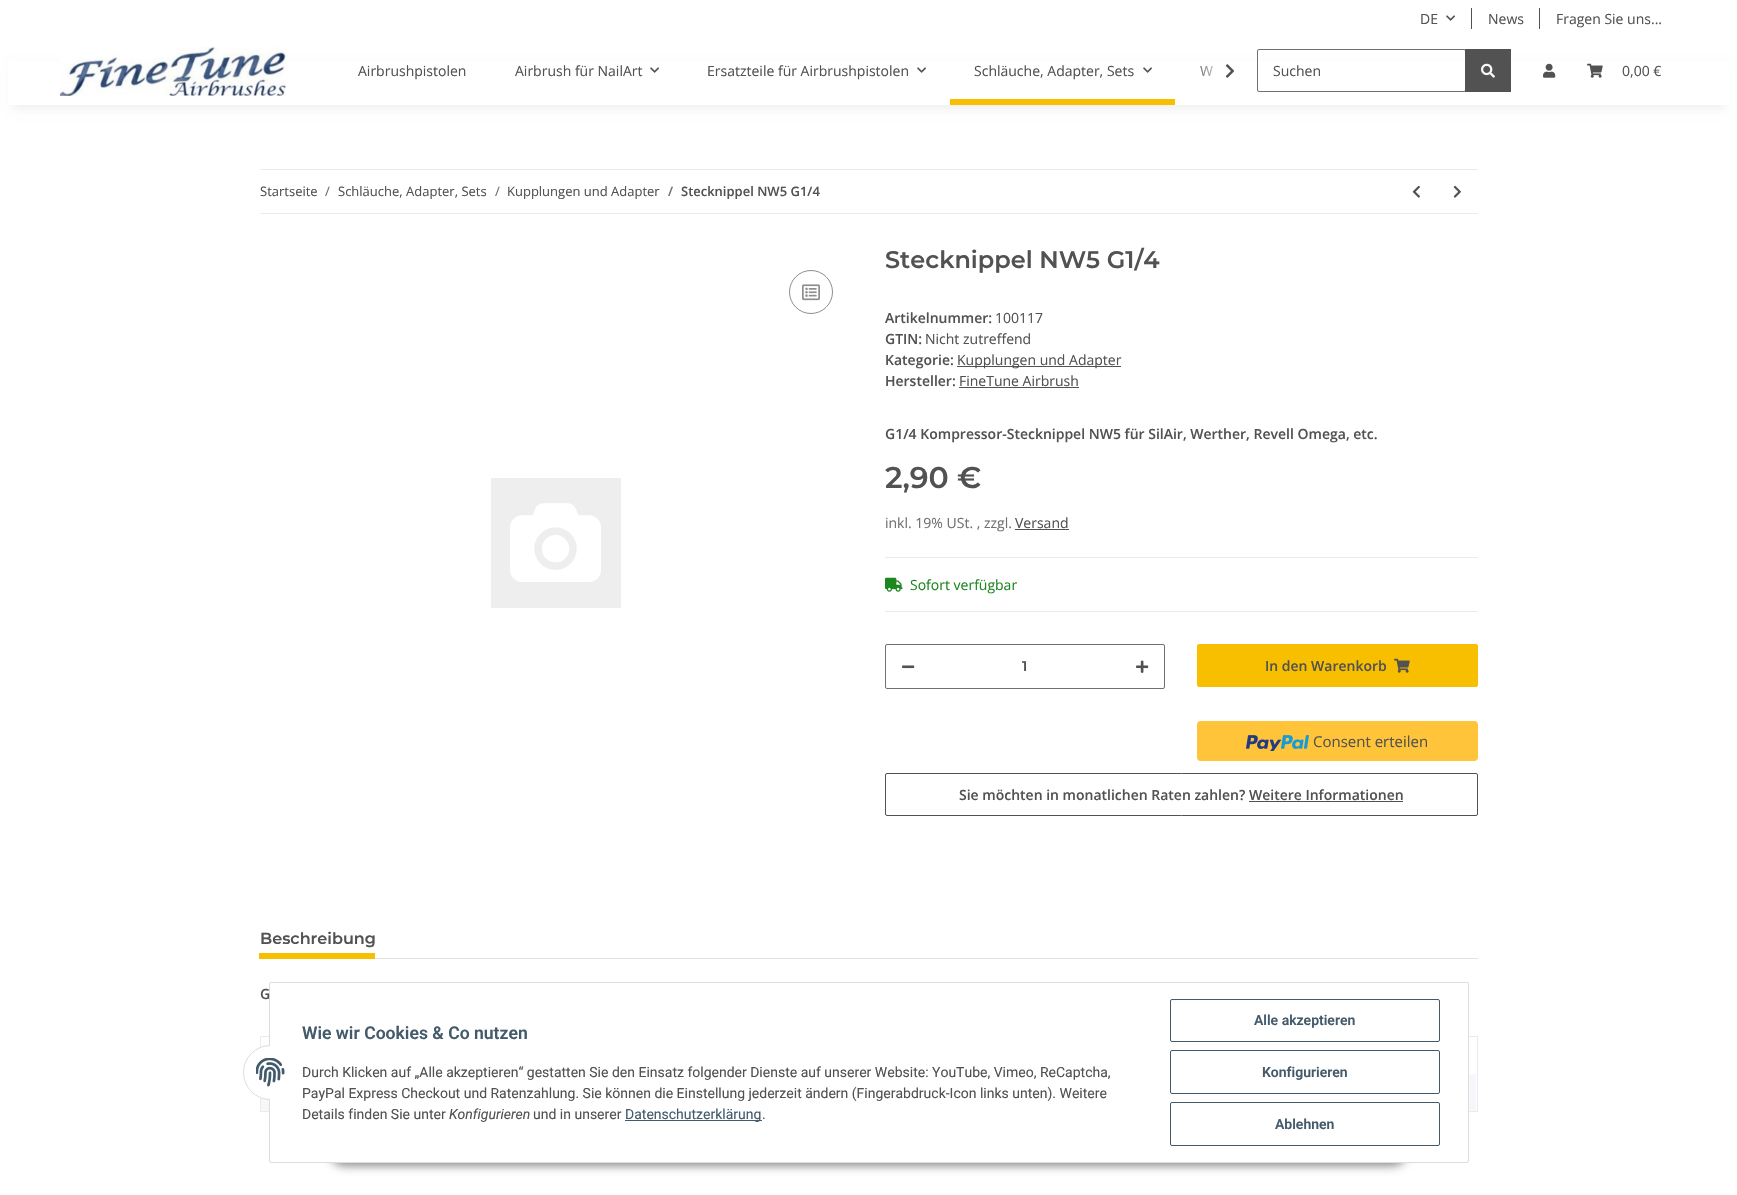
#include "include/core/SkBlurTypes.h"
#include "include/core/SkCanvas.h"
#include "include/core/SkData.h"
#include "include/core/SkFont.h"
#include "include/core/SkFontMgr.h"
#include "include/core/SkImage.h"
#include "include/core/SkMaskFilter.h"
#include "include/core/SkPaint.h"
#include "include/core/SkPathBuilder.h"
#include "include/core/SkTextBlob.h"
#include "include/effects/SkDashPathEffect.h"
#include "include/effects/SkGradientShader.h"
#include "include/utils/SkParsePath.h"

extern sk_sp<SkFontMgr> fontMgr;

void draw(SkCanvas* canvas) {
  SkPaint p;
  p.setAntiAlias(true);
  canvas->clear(SK_ColorWHITE);
  canvas->drawImageRect(SkImages::DeferredFromEncodedData(SkData::MakeFromFileName("images/1.png")), SkRect::MakeLTRB(1446, 15, 1455, 21), SkSamplingOptions());
  p.setColor(SkColorSetRGB(82, 82, 82));
  canvas->drawRect(SkRect::MakeLTRB(1471, 8, 1472, 29), p);
  canvas->drawRect(SkRect::MakeLTRB(1539, 8, 1540, 29), p);
  p.setColor(SkColorSetARGB(15, 0, 0, 0));
  p.setMaskFilter(SkMaskFilter::MakeBlur(kNormal_SkBlurStyle, 4.5f));
  canvas->drawRect(SkRect::MakeLTRB(12, 65, 1725, 109), p);
  p.setMaskFilter(nullptr);
  p.setColor(SK_ColorWHITE);
  canvas->drawRect(SkRect::MakeLTRB(8, 61, 1729, 105), p);
  canvas->drawImageRect(SkImages::DeferredFromEncodedData(SkData::MakeFromFileName("images/2.png")), SkRect::MakeLTRB(59, 47, 286, 96), SkSamplingOptions());
  canvas->drawImageRect(SkImages::DeferredFromEncodedData(SkData::MakeFromFileName("images/1.png")), SkRect::MakeLTRB(650, 67, 659, 73), SkSamplingOptions());
  canvas->drawImageRect(SkImages::DeferredFromEncodedData(SkData::MakeFromFileName("images/1.png")), SkRect::MakeLTRB(917, 67, 926, 73), SkSamplingOptions());
  canvas->drawImageRect(SkImages::DeferredFromEncodedData(SkData::MakeFromFileName("images/1.png")), SkRect::MakeLTRB(1143, 67, 1152, 73), SkSamplingOptions());
  p.setColor(SkColorSetRGB(248, 191, 0));
  canvas->drawRect(SkRect::MakeLTRB(950, 99, 1175, 105), p);
  canvas->drawImageRect(SkImages::DeferredFromEncodedData(SkData::MakeFromFileName("images/3.png")), SkRect::MakeLTRB(1225, 64, 1235, 78), SkSamplingOptions());
  p.setStyle(SkPaint::kStroke_Style);
  p.setStrokeWidth(1);
  p.setColor(SkColorSetRGB(112, 112, 112));
  canvas->drawRoundRect(SkRect::MakeLTRB(1257.5f, 49.5f, 1465.5f, 91.5f), 1.5f, 1.5f, p);
  p.setStyle(SkPaint::kFill_Style);
  p.setColor(SkColorSetRGB(82, 82, 82));
  canvas->drawRect(SkRect::MakeLTRB(1465, 49, 1511, 92), p);
  canvas->drawImageRect(SkImages::DeferredFromEncodedData(SkData::MakeFromFileName("images/4.png")), SkRect::MakeLTRB(1481, 63, 1495, 78), SkSamplingOptions());
  canvas->drawImageRect(SkImages::DeferredFromEncodedData(SkData::MakeFromFileName("images/5.png")), SkRect::MakeLTRB(1543, 63, 1556, 78), SkSamplingOptions());
  canvas->drawImageRect(SkImages::DeferredFromEncodedData(SkData::MakeFromFileName("images/6.png")), SkRect::MakeLTRB(1587, 63, 1603, 78), SkSamplingOptions());
  p.setColor(SkColorSetRGB(235, 235, 235));
  canvas->drawRect(SkRect::MakeLTRB(260, 169, 1478, 170), p);
  canvas->drawRect(SkRect::MakeLTRB(260, 213, 1478, 214), p);
  canvas->drawImageRect(SkImages::DeferredFromEncodedData(SkData::MakeFromFileName("images/7.png")), SkRect::MakeLTRB(1412, 185, 1420, 198), SkSamplingOptions());
  canvas->drawImageRect(SkImages::DeferredFromEncodedData(SkData::MakeFromFileName("images/8.png")), SkRect::MakeLTRB(1453, 185, 1461, 198), SkSamplingOptions());
  p.setStyle(SkPaint::kStroke_Style);
  p.setColor(SkColorSetRGB(141, 141, 141));
  canvas->drawCircle(811, 292, 21.5f, p);
  canvas->drawImageRect(SkImages::DeferredFromEncodedData(SkData::MakeFromFileName("images/9.png")), SkRect::MakeLTRB(802, 284, 820, 301), SkSamplingOptions());
  canvas->drawImageRect(SkImages::DeferredFromEncodedData(SkData::MakeFromFileName("images/10.png")), SkRect::MakeLTRB(491, 478, 621, 608), SkSamplingOptions());
  p.setStyle(SkPaint::kFill_Style);
  p.setColor(SkColorSetRGB(82, 82, 82));
  canvas->drawRect(SkRect::MakeLTRB(957, 366, 1121, 367), p);
  canvas->drawRect(SkRect::MakeLTRB(959, 387, 1079, 388), p);
  canvas->drawRect(SkRect::MakeLTRB(1015, 529, 1069, 530), p);
  p.setColor(SkColorSetRGB(235, 235, 235));
  canvas->drawRect(SkRect::MakeLTRB(885, 557, 1478, 558), p);
  canvas->drawRect(SkRect::MakeLTRB(885, 611, 1478, 612), p);
  canvas->drawImageRect(SkImages::DeferredFromEncodedData(SkData::MakeFromFileName("images/11.png")), SkRect::MakeLTRB(885, 577, 903, 592), SkSamplingOptions());
  p.setStyle(SkPaint::kStroke_Style);
  p.setColor(SkColorSetRGB(112, 112, 112));
  canvas->drawRoundRect(SkRect::MakeLTRB(885.5f, 644.5f, 1164.5f, 688.5f), 1.5f, 1.5f, p);
  canvas->drawImageRect(SkImages::DeferredFromEncodedData(SkData::MakeFromFileName("images/12.png")), SkRect::MakeLTRB(902, 665, 915, 669), SkSamplingOptions());
  canvas->drawImageRect(SkImages::DeferredFromEncodedData(SkData::MakeFromFileName("images/13.png")), SkRect::MakeLTRB(1136, 660, 1149, 673), SkSamplingOptions());
  p.setStyle(SkPaint::kFill_Style);
  p.setColor(SkColorSetRGB(248, 191, 0));
  canvas->drawRoundRect(SkRect::MakeLTRB(1197.5f, 644.5f, 1477.5f, 686.5f), 1.5f, 1.5f, p);
  p.setStyle(SkPaint::kStroke_Style);
  canvas->drawRoundRect(SkRect::MakeLTRB(1197.5f, 644.5f, 1477.5f, 686.5f), 1.5f, 1.5f, p);
  canvas->drawImageRect(SkImages::DeferredFromEncodedData(SkData::MakeFromFileName("images/14.png")), SkRect::MakeLTRB(1394, 658, 1410, 673), SkSamplingOptions());
  p.setStyle(SkPaint::kFill_Style);
  p.setColor(SkColorSetRGB(255, 196, 57));
  canvas->drawRoundRect(SkRect::MakeLTRB(1197, 721, 1478, 761), 4, 4, p);
  canvas->drawImageRect(SkImages::DeferredFromEncodedData(SkData::MakeFromFileName("images/15.png")), SkRect::MakeLTRB(1246, 735, 1309, 751), SkSamplingOptions());
  p.setStyle(SkPaint::kStroke_Style);
  p.setColor(SkColorSetRGB(82, 82, 82));
  canvas->drawRoundRect(SkRect::MakeLTRB(885.5f, 773.5f, 1477.5f, 815.5f), 1.5f, 1.5f, p);
  p.setStyle(SkPaint::kFill_Style);
  canvas->drawRect(SkRect::MakeLTRB(1249, 801, 1403, 802), p);
  p.setColor(SkColorSetRGB(222, 226, 230));
  canvas->drawRect(SkRect::MakeLTRB(375, 958, 1478, 959), p);
  p.setColor(SkColorSetRGB(248, 191, 0));
  canvas->drawRect(SkRect::MakeLTRB(259, 953, 375, 959), p);
  p.setColor(SkColorSetRGB(235, 235, 235));
  canvas->drawRect(SkRect::MakeLTRB(260, 1036, 1478, 1037), p);
  canvas->drawRect(SkRect::MakeLTRB(1477, 1074, 1478, 1112), p);
  canvas->drawRect(SkRect::MakeLTRB(1477, 1036, 1478, 1075), p);
  canvas->drawRect(SkRect::MakeLTRB(260, 1036, 261, 1048), p);
  p.setColor(SkColorSetRGB(245, 247, 250));
  canvas->drawRect(SkRect::MakeLTRB(261, 1074, 1476, 1111), p);
  p.setColor(SkColorSetRGB(235, 235, 235));
  canvas->drawRect(SkRect::MakeLTRB(260, 1111, 1478, 1112), p);
  canvas->drawRect(SkRect::MakeLTRB(260, 1097, 261, 1112), p);
  p.setColor(SkColorSetARGB(115, 0, 0, 0));
  p.setMaskFilter(SkMaskFilter::MakeBlur(kNormal_SkBlurStyle, 5));
  canvas->drawRoundRect(SkRect::MakeLTRB(329, 1134, 1408, 1166), 16, 16, p);
  p.setMaskFilter(nullptr);
  p.setColor(SK_ColorWHITE);
  canvas->drawRoundRect(SkRect::MakeLTRB(269.5f, 982.5f, 1468.5f, 1162.5f), 1.5f, 1.5f, p);
  p.setStyle(SkPaint::kStroke_Style);
  p.setColor(SkColorSetRGB(221, 221, 221));
  canvas->drawRoundRect(SkRect::MakeLTRB(269.5f, 982.5f, 1468.5f, 1162.5f), 1.5f, 1.5f, p);
  p.setStyle(SkPaint::kFill_Style);
  p.setColor(SK_ColorWHITE);
  canvas->drawCircle(270.5f, 1072.5f, 27, p);
  p.setStyle(SkPaint::kStroke_Style);
  p.setColor(SkColorSetRGB(221, 221, 221));
  canvas->drawCircle(270.5f, 1072.5f, 27, p);
  p.setStyle(SkPaint::kFill_Style);
  p.setColor(SK_ColorWHITE);
  canvas->drawRect(SkRect::MakeLTRB(270, 1045, 298, 1100), p);
  canvas->drawImageRect(SkImages::DeferredFromEncodedData(SkData::MakeFromFileName("images/16.png")), SkRect::MakeLTRB(256, 1058, 285, 1087), SkSamplingOptions());
  p.setColor(SkColorSetRGB(67, 90, 107));
  canvas->drawRect(SkRect::MakeLTRB(625, 1120, 762, 1121), p);
  p.setStyle(SkPaint::kStroke_Style);
  canvas->drawRoundRect(SkRect::MakeLTRB(1170.5f, 999.5f, 1439.5f, 1041.5f), 1.5f, 1.5f, p);
  canvas->drawRoundRect(SkRect::MakeLTRB(1170.5f, 1050.5f, 1439.5f, 1093.5f), 1.5f, 1.5f, p);
  canvas->drawRoundRect(SkRect::MakeLTRB(1170.5f, 1102.5f, 1439.5f, 1145.5f), 1.5f, 1.5f, p);
  SkFont font1(fontMgr->matchFamilyStyle("Open Sans", SkFontStyle::Normal()), 14);
  font1.setSubpixel(true);
  p.setStyle(SkPaint::kFill_Style);
  p.setColor(SkColorSetRGB(82, 82, 82));
  canvas->drawString("DE", 1420, 24, font1, p);
  canvas->drawString("News", 1488, 24, font1, p);
  canvas->drawString("Fragen Sie uns...", 1556, 24, font1, p);
  canvas->drawString("Airbrushpistolen", 358, 76, font1, p);
  canvas->drawString("Airbrush für NailArt", 515, 76, font1, p);
  canvas->drawString("Ersatzteile für Airbrushpistolen", 707, 76, font1, p);
  canvas->drawString("Schläuche, Adapter, Sets", 974, 76, font1, p);
  canvas->drawString("W", 1200, 76, font1, p);
  {
    const SkColor colors[] = {SkColorSetARGB(3, 255, 255, 255), SK_ColorWHITE};
    const float stops[] = {0, 0.7f};
    const SkPoint ends[] = {{1193, 71}, {1241, 71}};
    p.setShader(SkGradientShader::MakeLinear(ends, colors, stops, 2, SkTileMode::kClamp));
    p.setAlpha(255);
  }
  canvas->drawRect(SkRect::MakeLTRB(1200, 66, 1213, 76), p);
  p.setShader(nullptr);
  p.setColor(SkColorSetRGB(82, 82, 82));
  canvas->drawString("Suchen", 1273, 76, font1, p);
  canvas->drawString("0,00 €", 1622, 76, font1, p);
  SkFont font2(fontMgr->matchFamilyStyle("Open Sans", SkFontStyle::Normal()), 13);
  font2.setSubpixel(true);
  canvas->drawString("Startseite", 260, 196, font2, p);
  p.setColor(SkColorSetRGB(112, 112, 112));
  canvas->drawString("/", 325, 196, font2, p);
  p.setColor(SkColorSetRGB(82, 82, 82));
  canvas->drawString("Schläuche, Adapter, Sets", 338, 196, font2, p);
  p.setColor(SkColorSetRGB(112, 112, 112));
  canvas->drawString("/", 495, 196, font2, p);
  p.setColor(SkColorSetRGB(82, 82, 82));
  canvas->drawString("Kupplungen und Adapter", 507, 196, font2, p);
  SkFont font3(fontMgr->matchFamilyStyle("Open Sans", SkFontStyle(600, SkFontStyle::kNormal_Width, SkFontStyle::kUpright_Slant)), 13);
  font3.setSubpixel(true);
  p.setColor(SkColorSetRGB(112, 112, 112));
  canvas->drawString("/", 668, 196, font3, p);
  p.setColor(SkColorSetRGB(82, 82, 82));
  canvas->drawString("Stecknippel NW5 G1/4", 681, 196, font3, p);
  SkFont font4(fontMgr->matchFamilyStyle("Montserrat", SkFontStyle(600, SkFontStyle::kNormal_Width, SkFontStyle::kUpright_Slant)), 24);
  font4.setSubpixel(true);
  canvas->drawString("Stecknippel NW5 G1/4", 885, 268, font4, p);
  SkFont font5(fontMgr->matchFamilyStyle("Open Sans", SkFontStyle(600, SkFontStyle::kNormal_Width, SkFontStyle::kUpright_Slant)), 14);
  font5.setSubpixel(true);
  canvas->drawString("Artikelnummer:", 885, 323, font5, p);
  canvas->drawString("100117", 995, 323, font1, p);
  canvas->drawString("GTIN:", 885, 344, font5, p);
  canvas->drawString("Nicht zutreffend", 925, 344, font1, p);
  canvas->drawString("Kategorie:", 885, 365, font5, p);
  canvas->drawString("Kupplungen und Adapter", 957, 365, font1, p);
  canvas->drawString("Hersteller:", 885, 386, font5, p);
  canvas->drawString("FineTune Airbrush", 959, 386, font1, p);
  canvas->drawString("G1/4 Kompressor-Stecknippel NW5 für SilAir, Werther, Revell Omega, etc.", 885, 439, font5, p);
  SkFont font6(fontMgr->matchFamilyStyle("Montserrat", SkFontStyle(600, SkFontStyle::kNormal_Width, SkFontStyle::kUpright_Slant)), 30);
  font6.setSubpixel(true);
  canvas->drawString("2,90 €", 885, 488, font6, p);
  p.setColor(SkColorSetRGB(112, 112, 112));
  canvas->drawString("inkl. 19% USt. , zzgl.", 885, 528, font1, p);
  p.setColor(SkColorSetRGB(82, 82, 82));
  canvas->drawString("Versand", 1015, 528, font1, p);
  p.setColor(SkColorSetRGB(28, 135, 30));
  canvas->drawString("Sofort verfügbar", 910, 590, font1, p);
  SkFont font7(fontMgr->matchFamilyStyle("Montserrat", SkFontStyle(600, SkFontStyle::kNormal_Width, SkFontStyle::kUpright_Slant)), 14);
  font7.setSubpixel(true);
  p.setColor(SkColorSetRGB(82, 82, 82));
  canvas->drawString("1", 1022, 671, font7, p);
  canvas->drawString("In den Warenkorb", 1265, 671, font5, p);
  SkFont font8(fontMgr->matchFamilyStyle("Open Sans", SkFontStyle::Normal()), 15);
  font8.setSubpixel(true);
  canvas->drawString("Consent erteilen", 1313, 747, font8, p);
  canvas->drawString("Sie möchten in monatlichen Raten zahlen? Weitere Informationen", 959, 800, font5, p);
  SkFont font9(fontMgr->matchFamilyStyle("Montserrat", SkFontStyle(600, SkFontStyle::kNormal_Width, SkFontStyle::kUpright_Slant)), 16);
  font9.setSubpixel(true);
  canvas->drawString("Beschreibung", 260, 944, font9, p);
  canvas->drawString("G", 260, 999, font5, p);
  SkFont font10(fontMgr->matchFamilyStyle("Roboto", SkFontStyle(600, SkFontStyle::kNormal_Width, SkFontStyle::kUpright_Slant)), 17.6f);
  font10.setSubpixel(true);
  p.setColor(SkColorSetRGB(67, 90, 107));
  canvas->drawString("Wie wir Cookies & Co nutzen", 302, 1039, font10, p);
  SkFont font11(fontMgr->matchFamilyStyle("Roboto", SkFontStyle::Normal()), 14);
  font11.setSubpixel(true);
  p.setColor(SkColorSetRGB(82, 82, 82));
  canvas->drawString("Durch Klicken auf „Alle akzeptieren“ gestatten Sie den Einsatz folgender Dienste auf unserer Website: YouTube, Vimeo, ReCaptcha,", 302, 1077, font11, p);
  canvas->drawString("PayPal Express Checkout und Ratenzahlung. Sie können die Einstellung jederzeit ändern (Fingerabdruck-Icon links unten). Weitere", 302, 1098, font11, p);
  canvas->drawString("Details finden Sie unter", 302, 1119, font11, p);
  SkFont font12(fontMgr->matchFamilyStyle("Roboto", SkFontStyle::Italic()), 14);
  font12.setSubpixel(true);
  canvas->drawString("Konfigurieren", 449, 1119, font12, p);
  canvas->drawString("und in unserer", 533, 1119, font11, p);
  p.setColor(SkColorSetRGB(67, 90, 107));
  canvas->drawString("Datenschutzerklärung", 625, 1119, font11, p);
  p.setColor(SkColorSetRGB(82, 82, 82));
  canvas->drawString(".", 762, 1119, font11, p);
  SkFont font13(fontMgr->matchFamilyStyle("Roboto", SkFontStyle(600, SkFontStyle::kNormal_Width, SkFontStyle::kUpright_Slant)), 14);
  font13.setSubpixel(true);
  p.setColor(SkColorSetRGB(67, 90, 107));
  canvas->drawString("Alle akzeptieren", 1254, 1025, font13, p);
  canvas->drawString("Konfigurieren", 1262, 1077, font13, p);
  canvas->drawString("Ablehnen", 1275, 1129, font13, p);
}
